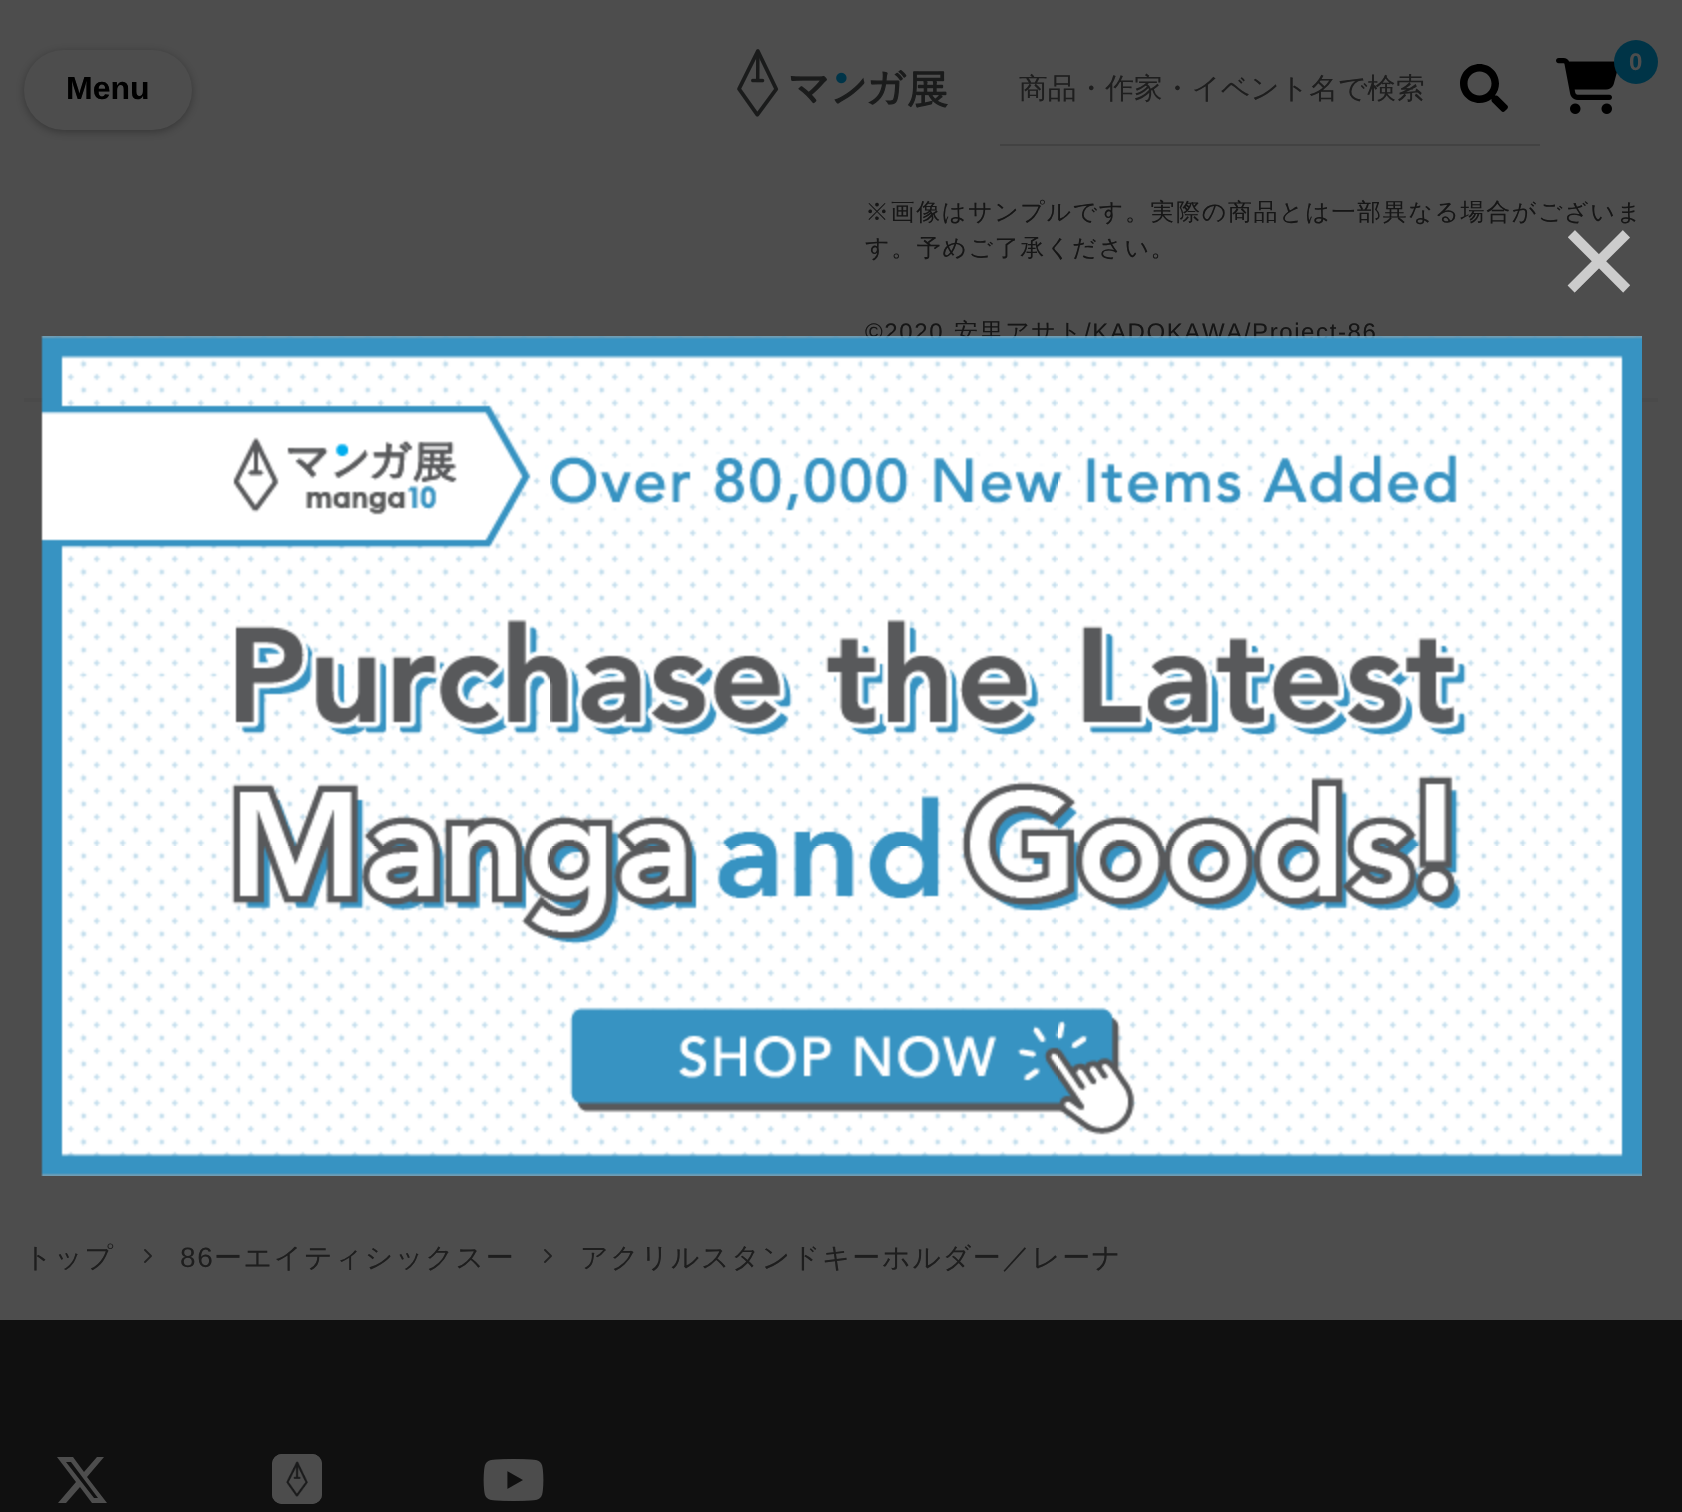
#include "include/core/SkBlurTypes.h"
#include "include/core/SkCanvas.h"
#include "include/core/SkData.h"
#include "include/core/SkFont.h"
#include "include/core/SkFontMgr.h"
#include "include/core/SkImage.h"
#include "include/core/SkMaskFilter.h"
#include "include/core/SkPaint.h"
#include "include/core/SkPathBuilder.h"
#include "include/core/SkTextBlob.h"
#include "include/effects/SkDashPathEffect.h"
#include "include/effects/SkGradientShader.h"
#include "include/utils/SkParsePath.h"

extern sk_sp<SkFontMgr> fontMgr;

void draw(SkCanvas* canvas) {
  SkPaint p;
  p.setAntiAlias(true);
  auto spacedText = [&](const char* s, float x, float y, const SkFont& font, const SkPaint& ink, float letter, float word) {
    std::vector<SkGlyphID> glyphs(font.countText(s, strlen(s), SkTextEncoding::kUTF8));
    std::vector<float> xs(glyphs.size());
    font.textToGlyphs(s, strlen(s), SkTextEncoding::kUTF8, glyphs);
    font.getXPos(glyphs, xs, x);
    float extra = 0;
    for (size_t i = 0; i < glyphs.size(); i++) {
      xs[i] += extra;
      extra += letter + word * (glyphs[i] == font.unicharToGlyph(' '));
    }
    canvas->drawTextBlob(SkTextBlob::MakeFromPosHGlyphs(glyphs, xs, y, font), 0, 0, ink);
  };
  canvas->clear(SkColorSetRGB(77, 77, 77));
  p.setColor(SkColorSetARGB(77, 0, 0, 0));
  p.setMaskFilter(SkMaskFilter::MakeBlur(kNormal_SkBlurStyle, 4));
  canvas->drawRoundRect(SkRect::MakeLTRB(24, 52, 192, 132), 40, 40, p);
  p.setMaskFilter(nullptr);
  p.setColor(SkColorSetRGB(77, 77, 77));
  canvas->drawRoundRect(SkRect::MakeLTRB(24, 50, 192, 130), 40, 40, p);
  canvas->drawImageRect(SkImages::DeferredFromEncodedData(SkData::MakeFromFileName("images/1.png")), SkRect::MakeLTRB(737, 49, 948, 117), SkSamplingOptions());
  canvas->drawImageRect(SkImages::DeferredFromEncodedData(SkData::MakeFromFileName("images/2.png")), SkRect::MakeLTRB(1556, 58, 1617, 114), SkSamplingOptions());
  p.setColor(SkColorSetRGB(0, 52, 71));
  canvas->drawCircle(1636, 62, 22, p);
  p.setColor(SkColorSetRGB(66, 66, 66));
  canvas->drawRect(SkRect::MakeLTRB(1000, 144, 1540, 146), p);
  canvas->drawImageRect(SkImages::DeferredFromEncodedData(SkData::MakeFromFileName("images/3.png")), SkRect::MakeLTRB(1460, 64, 1508, 112), SkSamplingOptions());
  p.setColor(SkColorSetRGB(74, 74, 74));
  canvas->drawRect(SkRect::MakeLTRB(24, 398, 1658, 402), p);
  canvas->drawImageRect(SkImages::DeferredFromEncodedData(SkData::MakeFromFileName("images/4.png")), SkRect::MakeLTRB(144, 1249, 152, 1263), SkSamplingOptions());
  canvas->drawImageRect(SkImages::DeferredFromEncodedData(SkData::MakeFromFileName("images/4.png")), SkRect::MakeLTRB(544, 1249, 552, 1263), SkSamplingOptions());
  p.setColor(SkColorSetRGB(16, 16, 16));
  canvas->drawRect(SkRect::MakeLTRB(0, 1320, 1682, 1512), p);
  p.setColor(SkColorSetRGB(77, 77, 77));
  canvas->drawPath(SkPathBuilder().moveTo(97, 1457).lineTo(104, 1457).lineTo(87, 1477).lineTo(107, 1503).lineTo(92, 1503).lineTo(80, 1487).lineTo(66, 1503).lineTo(58, 1503).lineTo(76, 1482).lineTo(57, 1457).lineTo(73, 1457).lineTo(84, 1472).close().moveTo(94, 1498).lineTo(98, 1498).lineTo(71, 1462).lineTo(66, 1462).close().detach(), p);
  canvas->drawRoundRect(SkRect::MakeLTRB(272, 1454, 322, 1504), 10, 10, p);
  canvas->drawImageRect(SkImages::DeferredFromEncodedData(SkData::MakeFromFileName("images/5.png")), SkRect::MakeLTRB(272, 1454, 322, 1504), SkSamplingOptions());
  canvas->drawImageRect(SkImages::DeferredFromEncodedData(SkData::MakeFromFileName("images/6.png")), SkRect::MakeLTRB(483, 1459, 544, 1501), SkSamplingOptions());
  SkFont font1(fontMgr->matchFamilyStyle("Liberation Sans", SkFontStyle::Bold()), 32);
  font1.setSubpixel(true);
  p.setColor(SK_ColorBLACK);
  canvas->drawString("Menu", 66, 99, font1, p);
  SkFont font2(fontMgr->matchFamilyStyle("Liberation Sans", SkFontStyle::Bold()), 24);
  font2.setSubpixel(true);
  p.setColor(SkColorSetRGB(77, 77, 77));
  spacedText("0", 1629, 70, font2, p, 1.6f, 0);
  SkFont font3(fontMgr->matchFamilyStyle("WenQuanYi Zen Hei", SkFontStyle(500, SkFontStyle::kNormal_Width, SkFontStyle::kUpright_Slant)), 28.75f);
  font3.setSubpixel(true);
  p.setColor(SkColorSetRGB(30, 30, 30));
  canvas->drawString("商品・作家・イベント名で検索", 1019, 98, font3, p);
  SkFont font4(fontMgr->matchFamilyStyle("WenQuanYi Zen Hei", SkFontStyle(500, SkFontStyle::kNormal_Width, SkFontStyle::kUpright_Slant)), 24);
  font4.setSubpixel(true);
  p.setColor(SkColorSetRGB(22, 22, 22));
  spacedText("※画像はサンプルです。実際の商品とは一部異なる場合がございま", 865, 220, font4, p, 1.6f, 0);
  spacedText("す。予めご了承ください。", 865, 256, font4, p, 1.6f, 0);
  SkFont font5(fontMgr->matchFamilyStyle("Liberation Sans", SkFontStyle::Normal()), 24);
  font5.setSubpixel(true);
  spacedText("©2020", 865, 340, font5, p, 1.6f, 0);
  spacedText("安里アサト", 954, 340, font4, p, 1.6f, 0);
  spacedText("/KADOKAWA/Project-86", 1084, 340, font5, p, 1.6f, 0);
  SkFont font6(fontMgr->matchFamilyStyle("WenQuanYi Zen Hei", SkFontStyle(500, SkFontStyle::kNormal_Width, SkFontStyle::kUpright_Slant)), 28);
  font6.setSubpixel(true);
  p.setColor(SkColorSetRGB(30, 30, 30));
  spacedText("トップ", 24, 1267, font6, p, 1.6f, 0);
  SkFont font7(fontMgr->matchFamilyStyle("Liberation Sans", SkFontStyle::Normal()), 28);
  font7.setSubpixel(true);
  spacedText("86", 180, 1267, font7, p, 1.6f, 0);
  spacedText("ーエイティシックスー", 214, 1267, font6, p, 1.6f, 0);
  spacedText("アクリルスタンドキーホルダー／レーナ", 580, 1267, font6, p, 1.6f, 0);
  SkFont font8(fontMgr->matchFamilyStyle("Liberation Sans", SkFontStyle::Normal()), 140);
  font8.setSubpixel(true);
  p.setColor(SkColorSetRGB(204, 204, 204));
  spacedText("×", 1558, 308, font8, p, 1.6f, 0);
  canvas->drawImageRect(SkImages::DeferredFromEncodedData(SkData::MakeFromFileName("images/7.png")), SkRect::MakeLTRB(41, 336, 1642, 1176), SkSamplingOptions());
}
